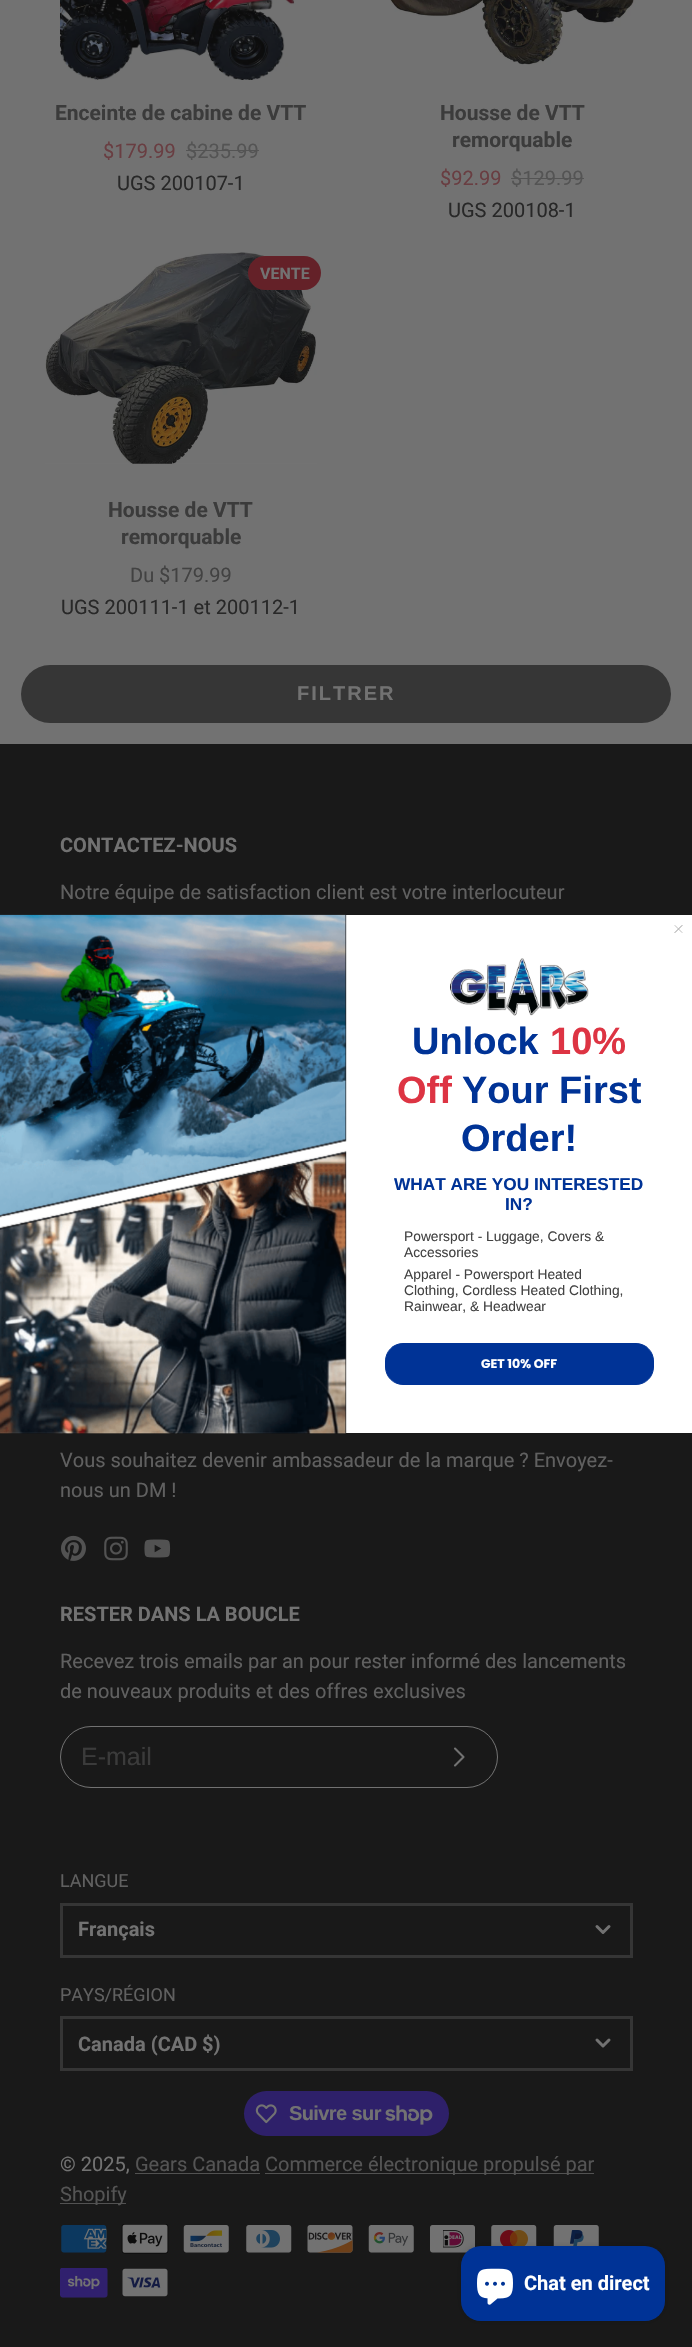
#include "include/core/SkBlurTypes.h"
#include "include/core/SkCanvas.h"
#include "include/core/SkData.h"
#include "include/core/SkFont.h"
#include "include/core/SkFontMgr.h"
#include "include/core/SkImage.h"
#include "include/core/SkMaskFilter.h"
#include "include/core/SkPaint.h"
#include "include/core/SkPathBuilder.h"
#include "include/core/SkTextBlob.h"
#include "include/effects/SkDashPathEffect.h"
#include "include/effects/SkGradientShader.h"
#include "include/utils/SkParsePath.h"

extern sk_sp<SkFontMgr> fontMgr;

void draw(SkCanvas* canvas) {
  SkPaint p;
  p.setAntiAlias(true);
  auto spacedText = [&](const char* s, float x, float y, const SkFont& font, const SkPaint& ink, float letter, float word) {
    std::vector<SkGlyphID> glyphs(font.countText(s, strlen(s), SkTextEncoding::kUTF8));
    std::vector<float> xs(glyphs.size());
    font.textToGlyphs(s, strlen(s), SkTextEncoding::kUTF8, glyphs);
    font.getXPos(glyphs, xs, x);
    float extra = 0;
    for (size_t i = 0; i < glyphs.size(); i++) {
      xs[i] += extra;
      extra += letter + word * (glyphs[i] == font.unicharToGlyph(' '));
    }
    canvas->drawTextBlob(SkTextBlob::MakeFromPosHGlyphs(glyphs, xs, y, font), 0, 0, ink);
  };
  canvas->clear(SkColorSetRGB(114, 114, 114));
  canvas->drawImageRect(SkImages::DeferredFromEncodedData(SkData::MakeFromFileName("images/1.png")), SkRect::MakeLTRB(60, 0, 296, 80), SkSamplingOptions());
  p.setColor(SkColorSetRGB(84, 84, 84));
  canvas->drawRect(SkRect::MakeLTRB(186, 150, 259, 151), p);
  canvas->drawImageRect(SkImages::DeferredFromEncodedData(SkData::MakeFromFileName("images/2.png")), SkRect::MakeLTRB(390, 0, 636, 65), SkSamplingOptions());
  canvas->drawRect(SkRect::MakeLTRB(511, 178, 584, 179), p);
  canvas->drawImageRect(SkImages::DeferredFromEncodedData(SkData::MakeFromFileName("images/3.png")), SkRect::MakeLTRB(45, 252, 317, 464), SkSamplingOptions());
  p.setColor(SkColorSetRGB(100, 33, 40));
  canvas->drawRoundRect(SkRect::MakeLTRB(248, 256, 321, 290), 17, 17, p);
  p.setColor(SkColorSetRGB(54, 54, 54));
  canvas->drawRoundRect(SkRect::MakeLTRB(21, 665, 671, 723), 29, 29, p);
  p.setColor(SkColorSetRGB(25, 25, 25));
  canvas->drawRect(SkRect::MakeLTRB(0, 744, 692, 2347), p);
  canvas->drawImageRect(SkImages::DeferredFromEncodedData(SkData::MakeFromFileName("images/4.png")), SkRect::MakeLTRB(61, 1535, 86, 1561), SkSamplingOptions());
  canvas->drawImageRect(SkImages::DeferredFromEncodedData(SkData::MakeFromFileName("images/5.png")), SkRect::MakeLTRB(104, 1536, 128, 1561), SkSamplingOptions());
  canvas->drawImageRect(SkImages::DeferredFromEncodedData(SkData::MakeFromFileName("images/6.png")), SkRect::MakeLTRB(144, 1539, 171, 1558), SkSamplingOptions());
  p.setStyle(SkPaint::kStroke_Style);
  p.setStrokeWidth(1);
  p.setColor(SkColorSetRGB(114, 114, 114));
  canvas->drawRoundRect(SkRect::MakeLTRB(60.5f, 1726.5f, 497.5f, 1787.5f), 30.5f, 30.5f, p);
  p.setStrokeWidth(2.1f);
  p.setStrokeCap(SkPaint::kRound_Cap);
  p.setStrokeJoin(SkPaint::kRound_Join);
  canvas->drawPath(SkPathBuilder().moveTo(455, 1765.5f).lineTo(463.5f, 1757).lineTo(455, 1748.5f).detach(), p);
  p.setStrokeWidth(3);
  p.setStrokeCap(SkPaint::kButt_Cap);
  p.setStrokeJoin(SkPaint::kMiter_Join);
  p.setColor(SkColorSetRGB(53, 53, 53));
  canvas->drawRect(SkRect::MakeLTRB(61.5f, 1904.5f, 631.5f, 1956.5f), p);
  p.setStrokeCap(SkPaint::kRound_Cap);
  p.setStrokeJoin(SkPaint::kRound_Join);
  p.setColor(SkColorSetRGB(114, 114, 114));
  canvas->drawPath(SkPathBuilder().moveTo(597, 1926.5f).lineTo(603, 1932.5f).lineTo(609, 1926.5f).detach(), p);
  p.setStrokeCap(SkPaint::kButt_Cap);
  p.setStrokeJoin(SkPaint::kMiter_Join);
  p.setColor(SkColorSetRGB(53, 53, 53));
  canvas->drawRect(SkRect::MakeLTRB(61.5f, 2017.5f, 631.5f, 2069.5f), p);
  p.setStrokeCap(SkPaint::kRound_Cap);
  p.setStrokeJoin(SkPaint::kRound_Join);
  p.setColor(SkColorSetRGB(114, 114, 114));
  canvas->drawPath(SkPathBuilder().moveTo(597, 2040).lineTo(603, 2046).lineTo(609, 2040).detach(), p);
  p.setStyle(SkPaint::kFill_Style);
  p.setColor(SkColorSetRGB(46, 32, 106));
  canvas->drawRoundRect(SkRect::MakeLTRB(244, 2091, 449, 2136), 22.5f, 22.5f, p);
  canvas->drawImageRect(SkImages::DeferredFromEncodedData(SkData::MakeFromFileName("images/7.png")), SkRect::MakeLTRB(255, 2104, 277, 2124), SkSamplingOptions());
  canvas->drawImageRect(SkImages::DeferredFromEncodedData(SkData::MakeFromFileName("images/8.png")), SkRect::MakeLTRB(385, 2105, 433, 2125), SkSamplingOptions());
  p.setColor(SkColorSetRGB(82, 82, 82));
  canvas->drawRect(SkRect::MakeLTRB(135, 2173, 260, 2174), p);
  canvas->drawRect(SkRect::MakeLTRB(265, 2173, 594, 2174), p);
  canvas->drawRect(SkRect::MakeLTRB(60, 2203, 126, 2204), p);
  canvas->drawImageRect(SkImages::DeferredFromEncodedData(SkData::MakeFromFileName("images/9.png")), SkRect::MakeLTRB(61, 2225, 107, 2253), SkSamplingOptions());
  canvas->drawImageRect(SkImages::DeferredFromEncodedData(SkData::MakeFromFileName("images/10.png")), SkRect::MakeLTRB(121, 2224, 169, 2254), SkSamplingOptions());
  canvas->drawImageRect(SkImages::DeferredFromEncodedData(SkData::MakeFromFileName("images/11.png")), SkRect::MakeLTRB(183, 2225, 229, 2253), SkSamplingOptions());
  canvas->drawImageRect(SkImages::DeferredFromEncodedData(SkData::MakeFromFileName("images/12.png")), SkRect::MakeLTRB(246, 2225, 292, 2253), SkSamplingOptions());
  canvas->drawImageRect(SkImages::DeferredFromEncodedData(SkData::MakeFromFileName("images/13.png")), SkRect::MakeLTRB(307, 2225, 353, 2253), SkSamplingOptions());
  canvas->drawImageRect(SkImages::DeferredFromEncodedData(SkData::MakeFromFileName("images/14.png")), SkRect::MakeLTRB(368, 2225, 414, 2253), SkSamplingOptions());
  canvas->drawImageRect(SkImages::DeferredFromEncodedData(SkData::MakeFromFileName("images/15.png")), SkRect::MakeLTRB(430, 2225, 475, 2253), SkSamplingOptions());
  canvas->drawImageRect(SkImages::DeferredFromEncodedData(SkData::MakeFromFileName("images/16.png")), SkRect::MakeLTRB(491, 2225, 537, 2246), SkSamplingOptions());
  canvas->drawImageRect(SkImages::DeferredFromEncodedData(SkData::MakeFromFileName("images/17.png")), SkRect::MakeLTRB(553, 2225, 599, 2246), SkSamplingOptions());
  canvas->drawImageRect(SkImages::DeferredFromEncodedData(SkData::MakeFromFileName("images/18.png")), SkRect::MakeLTRB(60, 2268, 108, 2298), SkSamplingOptions());
  canvas->drawImageRect(SkImages::DeferredFromEncodedData(SkData::MakeFromFileName("images/19.png")), SkRect::MakeLTRB(122, 2268, 168, 2297), SkSamplingOptions());
  p.setColor(SK_ColorWHITE);
  canvas->drawRect(SkRect::MakeLTRB(0, 915, 692, 1433), p);
  p.setStyle(SkPaint::kStroke_Style);
  p.setStrokeWidth(0.9f);
  p.setColor(SkColorSetRGB(181, 181, 181));
  canvas->drawPath(SkPathBuilder().moveTo(675, 925.5f).lineTo(682, 932.5f).moveTo(675, 932.5f).lineTo(682, 925.5f).close().detach(), p);
  canvas->drawImageRect(SkImages::DeferredFromEncodedData(SkData::MakeFromFileName("images/20.png")), SkRect::MakeLTRB(0, 914, 347, 1434), SkSamplingOptions());
  canvas->drawImageRect(SkImages::DeferredFromEncodedData(SkData::MakeFromFileName("images/21.png")), SkRect::MakeLTRB(450, 958, 589, 1016), SkSamplingOptions());
  p.setStyle(SkPaint::kFill_Style);
  p.setColor(SkColorSetRGB(0, 51, 150));
  canvas->drawRoundRect(SkRect::MakeLTRB(385.5f, 1343.5f, 653.5f, 1384.5f), 17.5f, 17.5f, p);
  p.setStyle(SkPaint::kStroke_Style);
  p.setStrokeWidth(1);
  p.setStrokeCap(SkPaint::kButt_Cap);
  p.setStrokeJoin(SkPaint::kMiter_Join);
  canvas->drawRoundRect(SkRect::MakeLTRB(385.5f, 1343.5f, 653.5f, 1384.5f), 17.5f, 17.5f, p);
  p.setStyle(SkPaint::kFill_Style);
  p.setColor(SkColorSetARGB(38, 0, 0, 0));
  p.setMaskFilter(SkMaskFilter::MakeBlur(kNormal_SkBlurStyle, 3));
  canvas->drawRoundRect(SkRect::MakeLTRB(461, 2246, 665, 2321), 20, 20, p);
  p.setMaskFilter(nullptr);
  p.setColor(SkColorSetRGB(0, 51, 150));
  canvas->drawRoundRect(SkRect::MakeLTRB(461, 2246, 665, 2321), 20, 20, p);
  canvas->drawImageRect(SkImages::DeferredFromEncodedData(SkData::MakeFromFileName("images/22.png")), SkRect::MakeLTRB(477, 2268, 513, 2305), SkSamplingOptions());
  SkFont font1(fontMgr->matchFamilyStyle("Roboto", SkFontStyle::Bold()), 21);
  font1.setSubpixel(true);
  p.setColor(SkColorSetRGB(59, 59, 59));
  canvas->drawString("Enceinte de cabine de VTT", 55, 120, font1, p);
  SkFont font2(fontMgr->matchFamilyStyle("Roboto", SkFontStyle::Normal()), 20);
  font2.setSubpixel(true);
  p.setColor(SkColorSetRGB(105, 62, 66));
  canvas->drawString("$179.99", 103, 158, font2, p);
  p.setColor(SkColorSetRGB(84, 84, 84));
  canvas->drawString("$235.99", 186, 158, font2, p);
  p.setColor(SkColorSetRGB(40, 40, 40));
  canvas->drawString("UGS 200107-1", 117, 190, font2, p);
  p.setColor(SkColorSetRGB(59, 59, 59));
  canvas->drawString("Housse de VTT", 440, 120, font1, p);
  canvas->drawString("remorquable", 452, 147, font1, p);
  p.setColor(SkColorSetRGB(105, 62, 66));
  canvas->drawString("$92.99", 440, 185, font2, p);
  p.setColor(SkColorSetRGB(84, 84, 84));
  canvas->drawString("$129.99", 511, 185, font2, p);
  p.setColor(SkColorSetRGB(40, 40, 40));
  canvas->drawString("UGS 200108-1", 448, 217, font2, p);
  SkFont font3(fontMgr->matchFamilyStyle("Roboto", SkFontStyle::Bold()), 16);
  font3.setSubpixel(true);
  p.setColor(SkColorSetRGB(114, 114, 114));
  canvas->drawString("VENTE", 260, 279, font3, p);
  p.setColor(SkColorSetRGB(59, 59, 59));
  canvas->drawString("Housse de VTT", 108, 517, font1, p);
  canvas->drawString("remorquable", 121, 544, font1, p);
  p.setColor(SkColorSetRGB(66, 66, 66));
  canvas->drawString("Du $179.99", 130, 582, font2, p);
  p.setColor(SkColorSetRGB(40, 40, 40));
  canvas->drawString("UGS 200111-1 et 200112-1", 61, 614, font2, p);
  SkFont font4(fontMgr->matchFamilyStyle("Liberation Sans", SkFontStyle::Bold()), 20);
  font4.setSubpixel(true);
  p.setColor(SkColorSetRGB(114, 114, 114));
  spacedText("FILTRER", 297, 700, font4, p, 2, 0);
  SkFont font5(fontMgr->matchFamilyStyle("Roboto", SkFontStyle::Bold()), 20);
  font5.setSubpixel(true);
  canvas->drawString("CONTACTEZ-NOUS", 60, 852, font5, p);
  p.setColor(SkColorSetRGB(96, 96, 96));
  canvas->drawString("Notre équipe de satisfaction client est votre interlocuteur", 60, 899, font2, p);
  canvas->drawString("Vous souhaitez devenir ambassadeur de la marque ? Envoyez-", 60, 1467, font2, p);
  canvas->drawString("nous un DM !", 60, 1497, font2, p);
  p.setColor(SkColorSetRGB(114, 114, 114));
  canvas->drawString("RESTER DANS LA BOUCLE", 60, 1621, font5, p);
  p.setColor(SkColorSetRGB(96, 96, 96));
  canvas->drawString("Recevez trois emails par an pour rester informé des lancements", 60, 1668, font2, p);
  canvas->drawString("de nouveaux produits et des offres exclusives", 60, 1698, font2, p);
  SkFont font6(fontMgr->matchFamilyStyle("Liberation Sans", SkFontStyle::Normal()), 25);
  font6.setSubpixel(true);
  p.setColor(SkColorSetRGB(59, 59, 59));
  canvas->drawString("E-mail", 81, 1765, font6, p);
  SkFont font7(fontMgr->matchFamilyStyle("Roboto", SkFontStyle::Normal()), 18);
  font7.setSubpixel(true);
  p.setColor(SkColorSetRGB(96, 96, 96));
  canvas->drawString("LANGUE", 60, 1887, font7, p);
  p.setColor(SkColorSetRGB(114, 114, 114));
  canvas->drawString("Français", 78, 1936, font5, p);
  p.setColor(SkColorSetRGB(96, 96, 96));
  canvas->drawString("PAYS/RÉGION", 60, 2001, font7, p);
  p.setColor(SkColorSetRGB(114, 114, 114));
  canvas->drawString("Canada (CAD $)", 78, 2051, font5, p);
  spacedText("Suivre sur", 289, 2120, font4, p, -0.6f, 0);
  canvas->drawString("© 2025,", 60, 2171, font2, p);
  p.setColor(SkColorSetRGB(84, 84, 84));
  canvas->drawString("Gears Canada", 135, 2171, font2, p);
  canvas->drawString("Commerce électronique propulsé par", 265, 2171, font2, p);
  canvas->drawString("Shopify", 60, 2201, font2, p);
  SkFont font8(fontMgr->matchFamilyStyle("Liberation Sans", SkFontStyle::Bold()), 38);
  font8.setSubpixel(true);
  p.setColor(SkColorSetRGB(0, 51, 150));
  canvas->drawString("Unlock", 412, 1054, font8, p);
  p.setColor(SkColorSetRGB(221, 52, 67));
  canvas->drawString("10%", 550, 1054, font8, p);
  canvas->drawString("Off", 397, 1103, font8, p);
  p.setColor(SkColorSetRGB(0, 51, 150));
  canvas->drawString("Your First", 462, 1103, font8, p);
  canvas->drawString("Order!", 461, 1151, font8, p);
  SkFont font9(fontMgr->matchFamilyStyle("Liberation Sans", SkFontStyle::Bold()), 17.25f);
  font9.setSubpixel(true);
  canvas->drawString("WHAT ARE YOU INTERESTED", 394, 1190, font9, p);
  canvas->drawString("IN?", 505, 1210, font9, p);
  SkFont font10(fontMgr->matchFamilyStyle("Liberation Sans", SkFontStyle::Normal()), 13.8f);
  font10.setSubpixel(true);
  p.setColor(SkColorSetRGB(66, 66, 66));
  canvas->drawString("Powersport - Luggage, Covers &", 404, 1241, font10, p);
  canvas->drawString("Accessories", 404, 1257, font10, p);
  canvas->drawString("Apparel - Powersport Heated", 404, 1279, font10, p);
  canvas->drawString("Clothing, Cordless Heated Clothing,", 404, 1295, font10, p);
  canvas->drawString("Rainwear, & Headwear", 404, 1311, font10, p);
  SkFont font11(fontMgr->matchFamilyStyle("Poppins", SkFontStyle::Bold()), 12.5f);
  font11.setSubpixel(true);
  p.setColor(SK_ColorWHITE);
  canvas->drawString("GET 10% OFF", 481, 1368, font11, p);
  canvas->drawString("Chat en direct", 524, 2290, font5, p);
}
